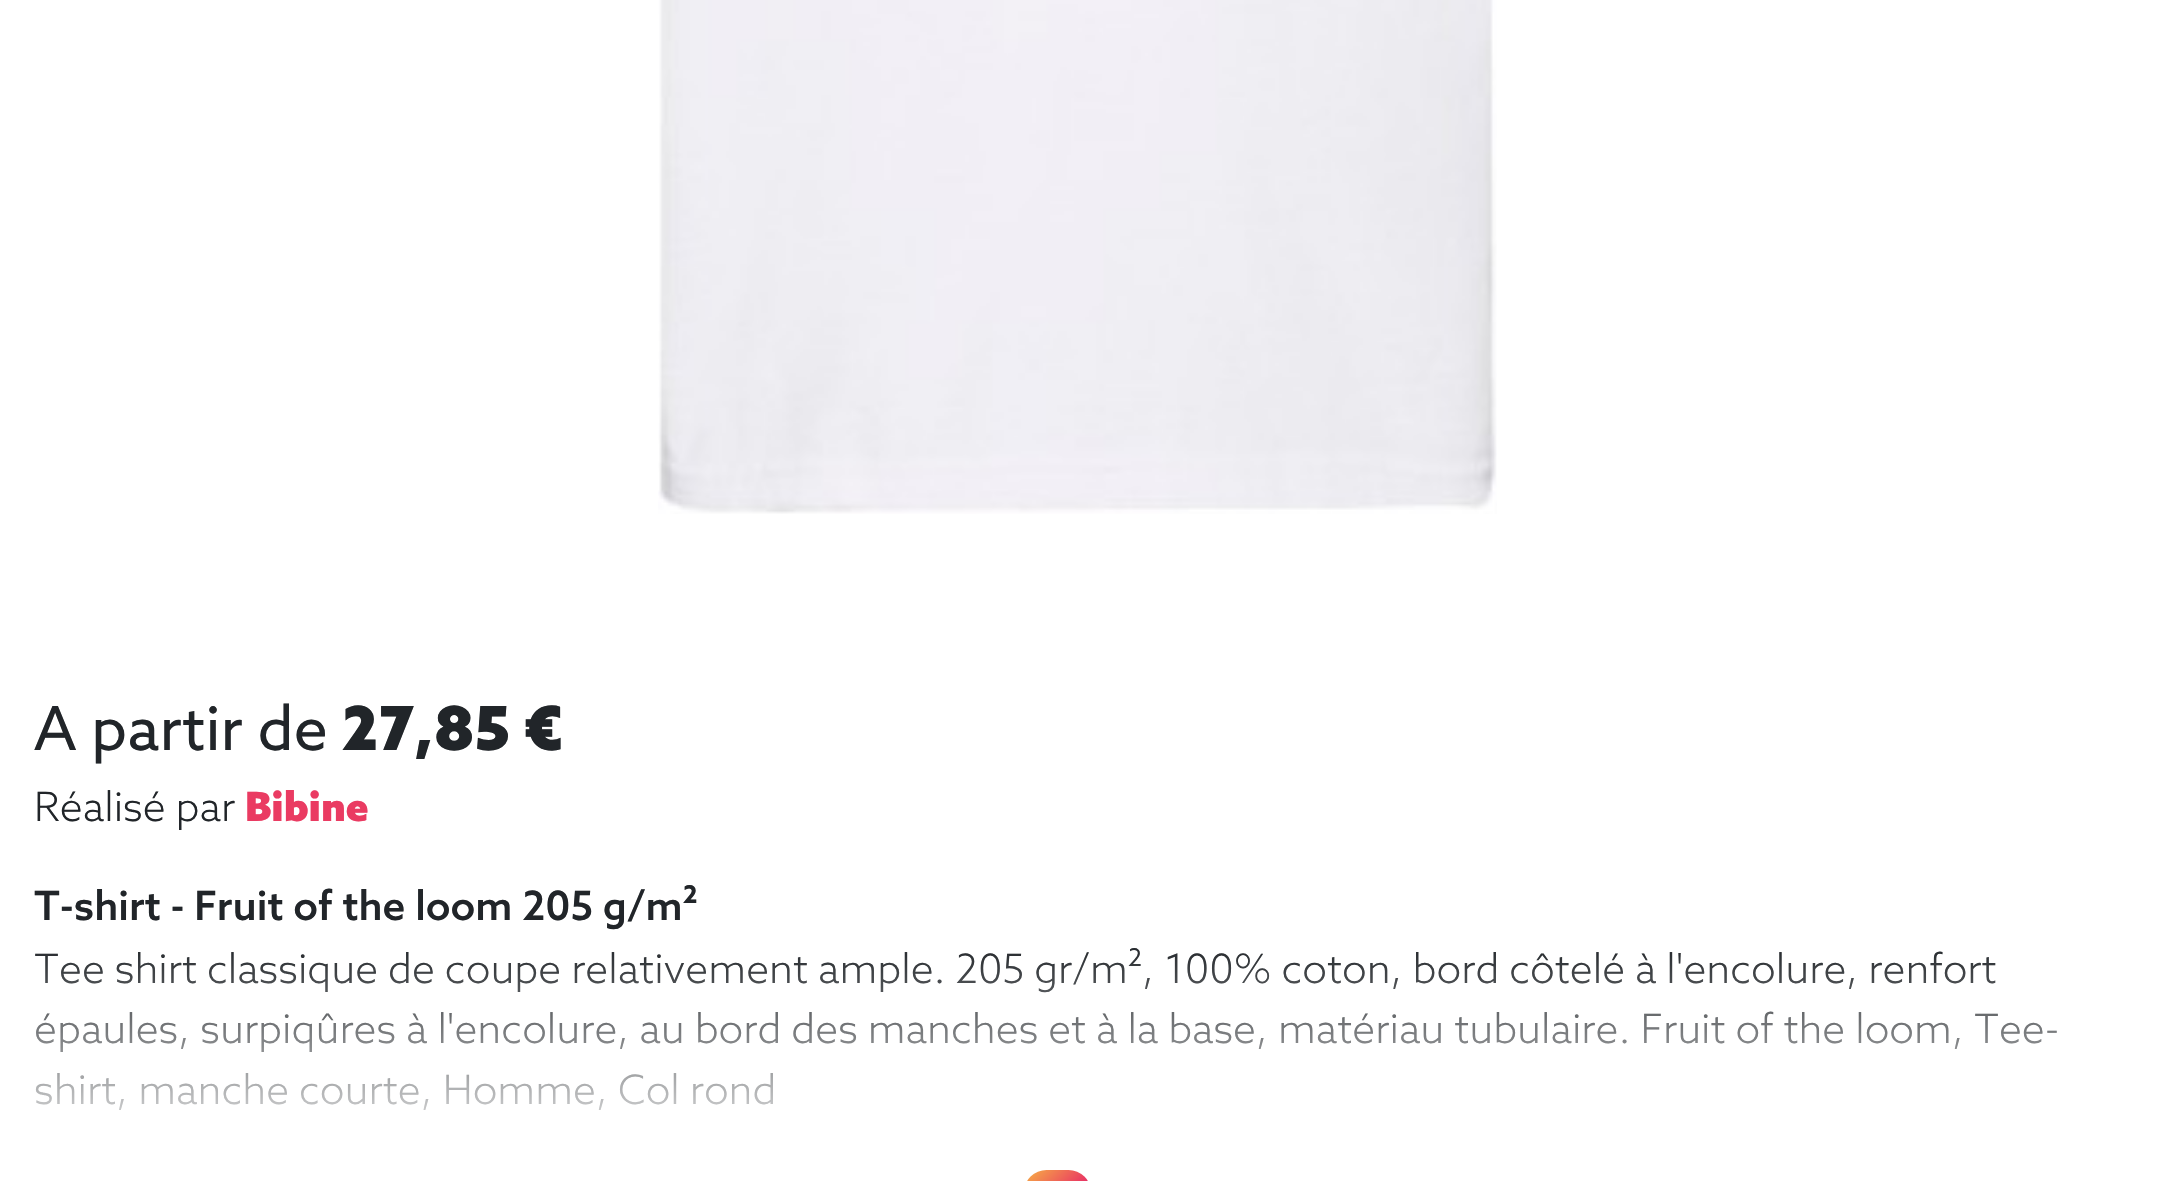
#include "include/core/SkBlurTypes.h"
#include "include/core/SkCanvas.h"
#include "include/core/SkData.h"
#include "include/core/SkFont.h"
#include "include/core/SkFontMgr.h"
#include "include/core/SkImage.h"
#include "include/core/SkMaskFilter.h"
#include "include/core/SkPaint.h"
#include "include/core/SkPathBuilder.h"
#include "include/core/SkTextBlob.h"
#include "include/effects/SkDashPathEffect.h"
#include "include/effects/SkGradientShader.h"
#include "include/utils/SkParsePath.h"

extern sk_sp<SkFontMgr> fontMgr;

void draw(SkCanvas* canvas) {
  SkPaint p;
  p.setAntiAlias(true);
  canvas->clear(SK_ColorWHITE);
  canvas->drawImageRect(SkImages::DeferredFromEncodedData(SkData::MakeFromFileName("images/1.png")), SkRect::MakeLTRB(658, 0, 1497, 514), SkSamplingOptions());
  {
    const SkColor colors[] = {SkColorSetRGB(247, 179, 67), SkColorSetRGB(234, 59, 98), SkColorSetRGB(118, 36, 115)};
    const float stops[] = {0, 0.5f, 1};
    const SkPoint ends[] = {{1025, 1169}, {1090, 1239}};
    p.setShader(SkGradientShader::MakeLinear(ends, colors, stops, 3, SkTileMode::kClamp));
    p.setAlpha(255);
  }
  canvas->drawRoundRect(SkRect::MakeLTRB(1024, 1170, 1091, 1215), 33.5f, 33.5f, p);
  SkFont font1(fontMgr->matchFamilyStyle("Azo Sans", SkFontStyle::Normal()), 60.75f);
  font1.setSubpixel(true);
  p.setShader(nullptr);
  p.setColor(SkColorSetRGB(33, 37, 41));
  canvas->drawString("A partir de", 34, 750, font1, p);
  SkFont font2(fontMgr->matchFamilyStyle("Azo Sans", SkFontStyle(900, SkFontStyle::kNormal_Width, SkFontStyle::kUpright_Slant)), 60.75f);
  font2.setSubpixel(true);
  canvas->drawString("27,85 €", 342, 750, font2, p);
  SkFont font3(fontMgr->matchFamilyStyle("Azo Sans", SkFontStyle(300, SkFontStyle::kNormal_Width, SkFontStyle::kUpright_Slant)), 40.5f);
  font3.setSubpixel(true);
  canvas->drawString("Réalisé par", 34, 821, font3, p);
  SkFont font4(fontMgr->matchFamilyStyle("Azo Sans", SkFontStyle(900, SkFontStyle::kNormal_Width, SkFontStyle::kUpright_Slant)), 40.5f);
  font4.setSubpixel(true);
  p.setColor(SkColorSetRGB(234, 59, 98));
  canvas->drawString("Bibine", 245, 821, font4, p);
  SkFont font5(fontMgr->matchFamilyStyle("Azo Sans", SkFontStyle(500, SkFontStyle::kNormal_Width, SkFontStyle::kUpright_Slant)), 40.5f);
  font5.setSubpixel(true);
  p.setColor(SkColorSetRGB(33, 37, 41));
  canvas->drawString("T-shirt - Fruit of the loom 205 g/m²", 34, 920, font5, p);
  canvas->drawString("Tee shirt classique de coupe relativement ample. 205 gr/m², 100% coton, bord côtelé à l'encolure, renfort", 34, 983, font3, p);
  canvas->drawString("épaules, surpiqûres à l'encolure, au bord des manches et à la base, matériau tubulaire. Fruit of the loom, Tee-", 34, 1043, font3, p);
  canvas->drawString("shirt, manche courte, Homme, Col rond", 34, 1104, font3, p);
  {
    const SkColor colors[] = {SkColorSetARGB(0, 255, 255, 255), SK_ColorWHITE};
    const float stops[] = {0, 1};
    const SkPoint ends[] = {{1090, 943}, {1090, 1168}};
    p.setShader(SkGradientShader::MakeLinear(ends, colors, stops, 2, SkTileMode::kClamp));
    p.setAlpha(255);
  }
  canvas->drawRect(SkRect::MakeLTRB(35, 948, 2057, 1110), p);
}
